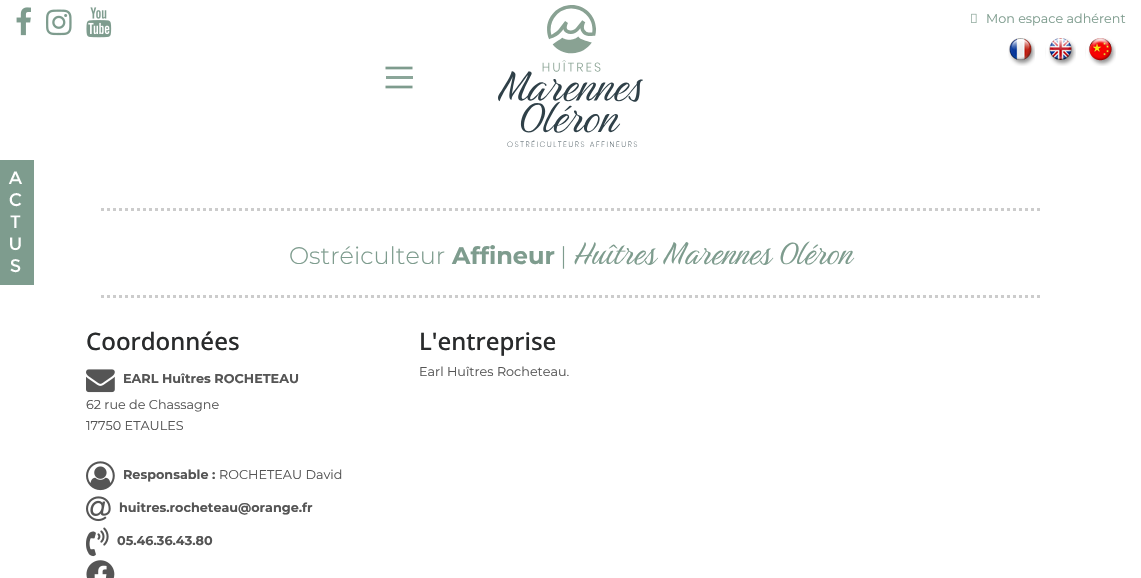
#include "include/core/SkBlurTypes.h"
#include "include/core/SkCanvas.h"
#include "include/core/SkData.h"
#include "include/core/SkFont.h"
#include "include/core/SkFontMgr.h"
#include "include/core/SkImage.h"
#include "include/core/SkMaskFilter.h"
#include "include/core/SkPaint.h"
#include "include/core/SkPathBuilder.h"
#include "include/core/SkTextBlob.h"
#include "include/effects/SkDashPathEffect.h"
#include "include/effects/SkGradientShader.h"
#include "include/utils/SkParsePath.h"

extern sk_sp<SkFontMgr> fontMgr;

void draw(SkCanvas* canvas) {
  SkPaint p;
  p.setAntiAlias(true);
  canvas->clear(SK_ColorWHITE);
  p.setColor(SkColorSetRGB(126, 156, 142));
  canvas->drawRect(SkRect::MakeLTRB(0, 160, 34, 285), p);
  canvas->drawImageRect(SkImages::DeferredFromEncodedData(SkData::MakeFromFileName("images/1.png")), SkRect::MakeLTRB(8, 171, 22, 273), SkSamplingOptions());
  canvas->drawImageRect(SkImages::DeferredFromEncodedData(SkData::MakeFromFileName("images/2.png")), SkRect::MakeLTRB(16, 7, 31, 36), SkSamplingOptions());
  canvas->drawImageRect(SkImages::DeferredFromEncodedData(SkData::MakeFromFileName("images/3.png")), SkRect::MakeLTRB(46, 9, 72, 36), SkSamplingOptions());
  canvas->drawImageRect(SkImages::DeferredFromEncodedData(SkData::MakeFromFileName("images/4.png")), SkRect::MakeLTRB(86, 7, 112, 38), SkSamplingOptions());
  canvas->drawImageRect(SkImages::DeferredFromEncodedData(SkData::MakeFromFileName("images/5.png")), SkRect::MakeLTRB(498, 5, 643, 147), SkSamplingOptions());
  canvas->drawImageRect(SkImages::DeferredFromEncodedData(SkData::MakeFromFileName("images/6.png")), SkRect::MakeLTRB(971, 13, 977, 23), SkSamplingOptions());
  canvas->drawImageRect(SkImages::DeferredFromEncodedData(SkData::MakeFromFileName("images/7.png")), SkRect::MakeLTRB(1008, 38, 1035, 66), SkSamplingOptions());
  canvas->drawImageRect(SkImages::DeferredFromEncodedData(SkData::MakeFromFileName("images/8.png")), SkRect::MakeLTRB(1045, 38, 1076, 66), SkSamplingOptions());
  canvas->drawImageRect(SkImages::DeferredFromEncodedData(SkData::MakeFromFileName("images/9.png")), SkRect::MakeLTRB(1085, 38, 1116, 66), SkSamplingOptions());
  p.setStyle(SkPaint::kStroke_Style);
  p.setStrokeWidth(2.7f);
  canvas->drawPath(SkPathBuilder().moveTo(385.5f, 68).lineTo(412.5f, 68).detach(), p);
  p.setStyle(SkPaint::kFill_Style);
  p.setColor(SkColorSetRGB(139, 166, 153));
  canvas->drawRect(SkRect::MakeLTRB(386, 76, 413, 79), p);
  p.setStyle(SkPaint::kStroke_Style);
  p.setColor(SkColorSetRGB(126, 156, 142));
  canvas->drawPath(SkPathBuilder().moveTo(385.5f, 87).lineTo(412.5f, 87).detach(), p);
  p.setStrokeWidth(3);
  p.setColor(SkColorSetRGB(204, 204, 204));
  p.setPathEffect(SkDashPathEffect::Make({{3, 3}}, 0));
  canvas->drawPath(SkPathBuilder().moveTo(101, 209.5f).lineTo(1041, 209.5f).detach(), p);
  p.setPathEffect(nullptr);
  p.setPathEffect(SkDashPathEffect::Make({{3, 3}}, 0));
  canvas->drawPath(SkPathBuilder().moveTo(101, 296.5f).lineTo(1041, 296.5f).detach(), p);
  p.setPathEffect(nullptr);
  canvas->drawImageRect(SkImages::DeferredFromEncodedData(SkData::MakeFromFileName("images/10.png")), SkRect::MakeLTRB(86, 369, 115, 393), SkSamplingOptions());
  canvas->drawImageRect(SkImages::DeferredFromEncodedData(SkData::MakeFromFileName("images/11.png")), SkRect::MakeLTRB(86, 461, 115, 491), SkSamplingOptions());
  canvas->drawImageRect(SkImages::DeferredFromEncodedData(SkData::MakeFromFileName("images/12.png")), SkRect::MakeLTRB(86, 496, 111, 522), SkSamplingOptions());
  canvas->drawImageRect(SkImages::DeferredFromEncodedData(SkData::MakeFromFileName("images/13.png")), SkRect::MakeLTRB(86, 527, 109, 557), SkSamplingOptions());
  canvas->drawImageRect(SkImages::DeferredFromEncodedData(SkData::MakeFromFileName("images/14.png")), SkRect::MakeLTRB(86, 560, 115, 578), SkSamplingOptions());
  SkFont font1(fontMgr->matchFamilyStyle("Montserrat", SkFontStyle::Normal()), 12.75f);
  font1.setSubpixel(true);
  p.setStyle(SkPaint::kFill_Style);
  p.setColor(SkColorSetRGB(126, 156, 142));
  canvas->drawString("Mon espace adhérent", 986, 23, font1, p);
  SkFont font2(fontMgr->matchFamilyStyle("Montserrat", SkFontStyle(300, SkFontStyle::kNormal_Width, SkFontStyle::kUpright_Slant)), 24);
  font2.setSubpixel(true);
  canvas->drawString("Ostréiculteur", 289, 264, font2, p);
  SkFont font3(fontMgr->matchFamilyStyle("Montserrat", SkFontStyle::Bold()), 24);
  font3.setSubpixel(true);
  canvas->drawString("Affineur", 452, 264, font3, p);
  canvas->drawString("|", 560, 264, font2, p);
  SkFont font4(fontMgr->matchFamilyStyle("Birthstone", SkFontStyle::Normal()), 40);
  font4.setSubpixel(true);
  canvas->drawString("Huîtres Marennes Oléron", 574, 264, font4, p);
  SkFont font5(fontMgr->matchFamilyStyle("Noto Sans", SkFontStyle(500, SkFontStyle::kNormal_Width, SkFontStyle::kUpright_Slant)), 24);
  font5.setSubpixel(true);
  p.setColor(SkColorSetRGB(41, 43, 44));
  canvas->drawString("Coordonnées", 86, 350, font5, p);
  SkFont font6(fontMgr->matchFamilyStyle("Montserrat", SkFontStyle::Bold()), 12.75f);
  font6.setSubpixel(true);
  p.setColor(SkColorSetRGB(85, 85, 85));
  canvas->drawString("EARL Huîtres ROCHETEAU", 123, 383, font6, p);
  canvas->drawString("62 rue de Chassagne", 86, 409, font1, p);
  canvas->drawString("17750 ETAULES", 86, 430, font1, p);
  canvas->drawString("Responsable :", 123, 479, font6, p);
  canvas->drawString("ROCHETEAU David", 219, 479, font1, p);
  canvas->drawString("huitres.rocheteau@orange.fr", 119, 512, font6, p);
  canvas->drawString("05.46.36.43.80", 117, 545, font6, p);
  p.setColor(SkColorSetRGB(41, 43, 44));
  canvas->drawString("L'entreprise", 419, 350, font5, p);
  p.setColor(SkColorSetRGB(85, 85, 85));
  canvas->drawString("Earl Huîtres Rocheteau.", 419, 376, font1, p);
}
